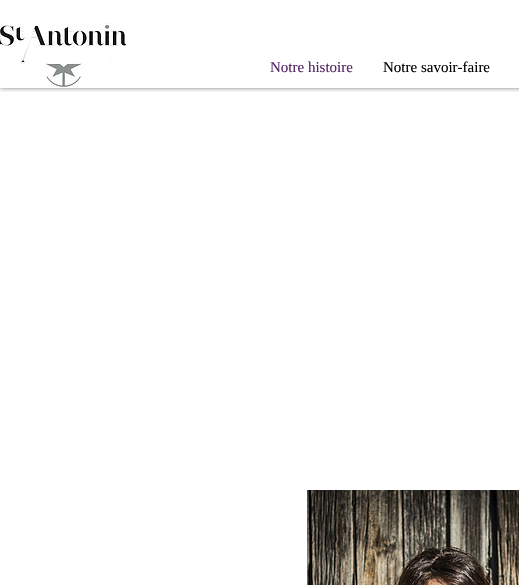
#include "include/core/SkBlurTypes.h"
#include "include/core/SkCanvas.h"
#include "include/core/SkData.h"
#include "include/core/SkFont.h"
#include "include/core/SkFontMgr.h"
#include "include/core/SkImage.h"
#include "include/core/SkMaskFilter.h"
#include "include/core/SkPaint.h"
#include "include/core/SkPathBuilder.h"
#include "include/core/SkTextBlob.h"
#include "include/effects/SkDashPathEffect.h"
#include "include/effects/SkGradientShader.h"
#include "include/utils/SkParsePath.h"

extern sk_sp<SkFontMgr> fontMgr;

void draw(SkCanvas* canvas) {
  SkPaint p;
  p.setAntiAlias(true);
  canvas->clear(SK_ColorWHITE);
  canvas->save();
  canvas->clipRect(SkRect::MakeLTRB(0, 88, 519, 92));
  p.setColor(SkColorSetARGB(128, 0, 0, 0));
  p.setMaskFilter(SkMaskFilter::MakeBlur(kNormal_SkBlurStyle, 2.5f));
  canvas->drawRect(SkRect::MakeLTRB(0, 0, 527, 88), p);
  p.setMaskFilter(nullptr);
  canvas->restore();
  canvas->drawImageRect(SkImages::DeferredFromEncodedData(SkData::MakeFromFileName("images/1.png")), SkRect::MakeLTRB(0, 23, 126, 87), SkSamplingOptions());
  canvas->drawImageRect(SkImages::DeferredFromEncodedData(SkData::MakeFromFileName("images/2.png")), SkRect::MakeLTRB(307, 490, 519, 585), SkSamplingOptions());
  SkFont font1(fontMgr->matchFamilyStyle("Liberation Serif", SkFontStyle::Normal()), 15);
  font1.setSubpixel(true);
  p.setColor(SkColorSetRGB(83, 37, 99));
  canvas->drawString("Notre histoire", 270, 72, font1, p);
  p.setColor(SK_ColorBLACK);
  canvas->drawString("Notre savoir-faire", 383, 72, font1, p);
}
